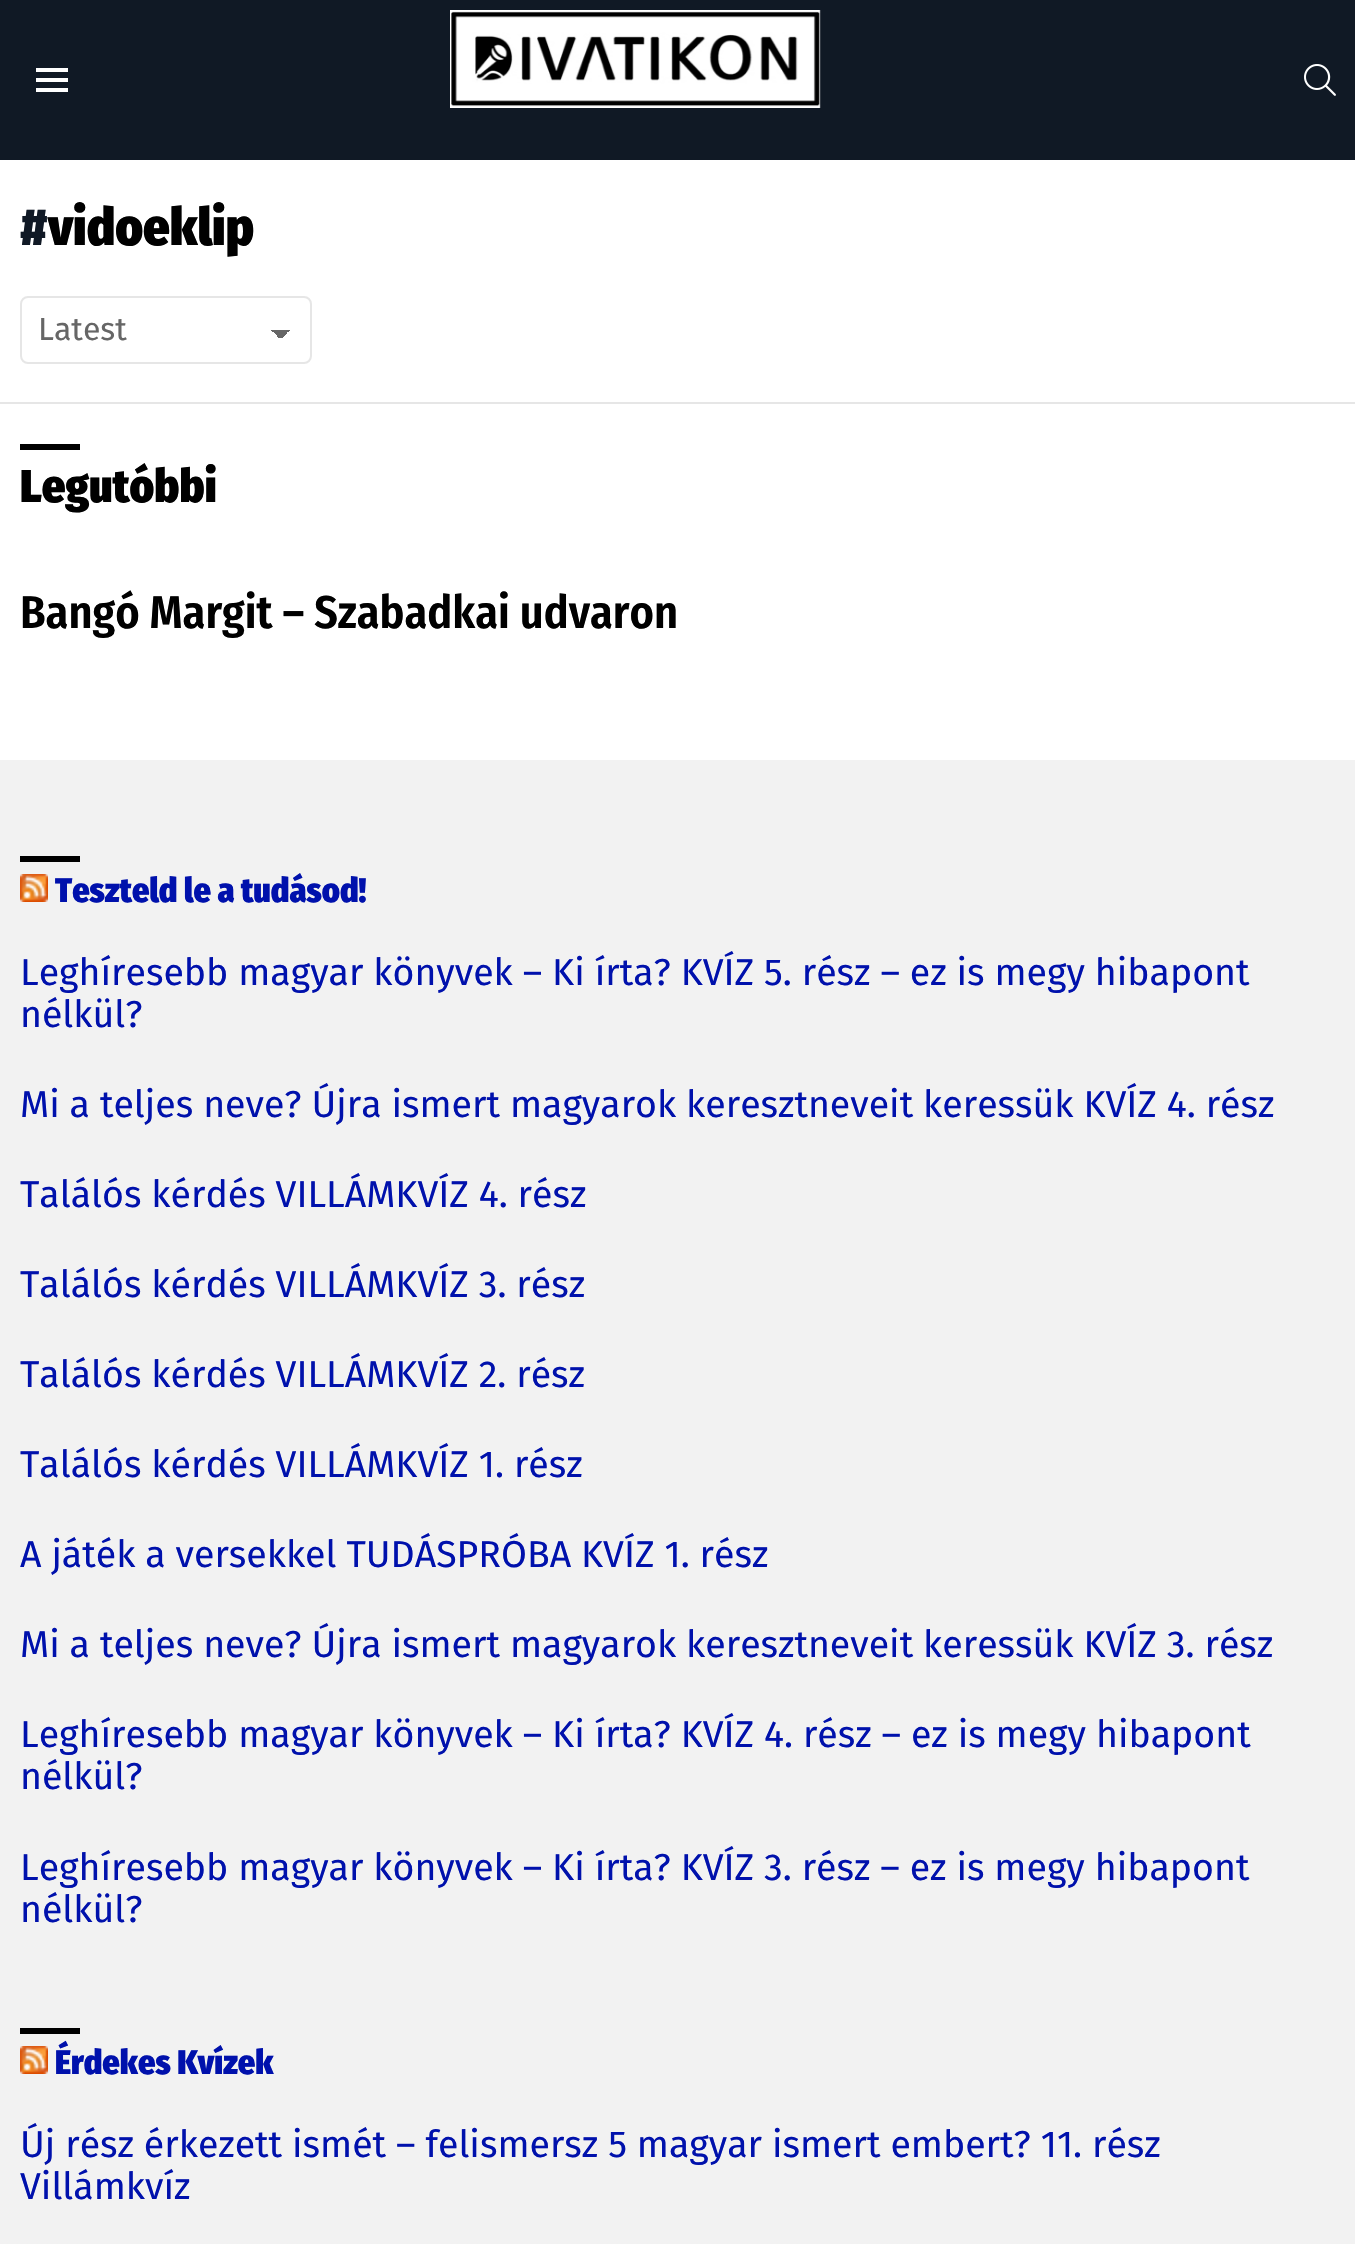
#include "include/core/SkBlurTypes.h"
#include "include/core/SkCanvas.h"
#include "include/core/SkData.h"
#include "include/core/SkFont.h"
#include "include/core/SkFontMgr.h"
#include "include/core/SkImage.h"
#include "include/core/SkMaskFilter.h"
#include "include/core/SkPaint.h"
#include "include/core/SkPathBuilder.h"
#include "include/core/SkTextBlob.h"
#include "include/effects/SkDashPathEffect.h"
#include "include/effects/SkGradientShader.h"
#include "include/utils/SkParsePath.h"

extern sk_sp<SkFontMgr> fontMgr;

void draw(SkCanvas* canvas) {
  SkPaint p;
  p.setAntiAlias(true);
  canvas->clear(SK_ColorWHITE);
  p.setColor(SkColorSetRGB(16, 25, 37));
  canvas->drawRect(SkRect::MakeLTRB(0, 0, 1355, 160), p);
  canvas->drawImageRect(SkImages::DeferredFromEncodedData(SkData::MakeFromFileName("images/1.png")), SkRect::MakeLTRB(36, 68, 68, 92), SkSamplingOptions());
  canvas->drawImageRect(SkImages::DeferredFromEncodedData(SkData::MakeFromFileName("images/2.png")), SkRect::MakeLTRB(450, 10, 821, 108), SkSamplingOptions());
  canvas->drawImageRect(SkImages::DeferredFromEncodedData(SkData::MakeFromFileName("images/3.png")), SkRect::MakeLTRB(1304, 64, 1336, 96), SkSamplingOptions());
  {
    const SkColor colors[] = {SkColorSetRGB(102, 102, 102), SK_ColorWHITE};
    const float stops[] = {0.5f, 0.5f};
    const SkPoint ends[] = {{281, 330}, {290, 339}};
    p.setShader(SkGradientShader::MakeLinear(ends, colors, stops, 2, SkTileMode::kClamp));
    p.setAlpha(255);
  }
  canvas->drawRect(SkRect::MakeLTRB(280, 330, 290, 338), p);
  {
    const SkColor colors[] = {SK_ColorWHITE, SkColorSetRGB(102, 102, 102)};
    const float stops[] = {0.5f, 0.5f};
    const SkPoint ends[] = {{271, 339}, {280, 330}};
    p.setShader(SkGradientShader::MakeLinear(ends, colors, stops, 2, SkTileMode::kClamp));
    p.setAlpha(255);
  }
  canvas->drawRect(SkRect::MakeLTRB(270, 330, 280, 338), p);
  p.setStyle(SkPaint::kStroke_Style);
  p.setStrokeWidth(2);
  p.setShader(nullptr);
  p.setColor(SkColorSetRGB(230, 230, 230));
  canvas->drawRoundRect(SkRect::MakeLTRB(21, 297, 311, 363), 7, 7, p);
  p.setStyle(SkPaint::kFill_Style);
  canvas->drawRect(SkRect::MakeLTRB(0, 402, 1355, 404), p);
  p.setColor(SK_ColorBLACK);
  canvas->drawRect(SkRect::MakeLTRB(20, 444, 80, 450), p);
  p.setColor(SkColorSetRGB(242, 242, 242));
  canvas->drawRect(SkRect::MakeLTRB(0, 760, 1355, 2244), p);
  p.setColor(SK_ColorBLACK);
  canvas->drawRect(SkRect::MakeLTRB(20, 856, 80, 862), p);
  canvas->drawImageRect(SkImages::DeferredFromEncodedData(SkData::MakeFromFileName("images/4.png")), SkRect::MakeLTRB(20, 874, 48, 902), SkSamplingOptions());
  canvas->drawRect(SkRect::MakeLTRB(20, 2028, 80, 2034), p);
  canvas->drawImageRect(SkImages::DeferredFromEncodedData(SkData::MakeFromFileName("images/4.png")), SkRect::MakeLTRB(20, 2046, 48, 2074), SkSamplingOptions());
  SkFont font1(fontMgr->matchFamilyStyle("Fira Sans Condensed", SkFontStyle(900, SkFontStyle::kNormal_Width, SkFontStyle::kUpright_Slant)), 52);
  font1.setSubpixel(true);
  p.setColor(SkColorSetRGB(16, 25, 37));
  canvas->drawString("#", 20, 245, font1, p);
  p.setColor(SK_ColorBLACK);
  canvas->drawString("vidoeklip", 48, 245, font1, p);
  SkFont font2(fontMgr->matchFamilyStyle("Fira Sans", SkFontStyle::Normal()), 32);
  font2.setSubpixel(true);
  p.setColor(SkColorSetRGB(102, 102, 102));
  canvas->drawString("Latest", 38, 340, font2, p);
  SkFont font3(fontMgr->matchFamilyStyle("Fira Sans Condensed", SkFontStyle(900, SkFontStyle::kNormal_Width, SkFontStyle::kUpright_Slant)), 46);
  font3.setSubpixel(true);
  p.setColor(SK_ColorBLACK);
  canvas->drawString("Legutóbbi", 20, 502, font3, p);
  SkFont font4(fontMgr->matchFamilyStyle("Fira Sans Condensed", SkFontStyle(600, SkFontStyle::kNormal_Width, SkFontStyle::kUpright_Slant)), 46);
  font4.setSubpixel(true);
  canvas->drawString("Bangó Margit – Szabadkai udvaron", 20, 628, font4, p);
  SkFont font5(fontMgr->matchFamilyStyle("Fira Sans Condensed", SkFontStyle(900, SkFontStyle::kNormal_Width, SkFontStyle::kUpright_Slant)), 34);
  font5.setSubpixel(true);
  p.setColor(SkColorSetRGB(0, 17, 172));
  canvas->drawString("Teszteld le a tudásod!", 55, 902, font5, p);
  SkFont font6(fontMgr->matchFamilyStyle("Fira Sans", SkFontStyle::Normal()), 37.45f);
  font6.setSubpixel(true);
  canvas->drawString("Leghíresebb magyar könyvek – Ki írta? KVÍZ 5. rész – ez is megy hibapont", 20, 985, font6, p);
  canvas->drawString("nélkül?", 20, 1027, font6, p);
  canvas->drawString("Mi a teljes neve? Újra ismert magyarok keresztneveit keressük KVÍZ 4. rész", 20, 1117, font6, p);
  canvas->drawString("Találós kérdés VILLÁMKVÍZ 4. rész", 20, 1207, font6, p);
  canvas->drawString("Találós kérdés VILLÁMKVÍZ 3. rész", 20, 1297, font6, p);
  canvas->drawString("Találós kérdés VILLÁMKVÍZ 2. rész", 20, 1387, font6, p);
  canvas->drawString("Találós kérdés VILLÁMKVÍZ 1. rész", 20, 1477, font6, p);
  canvas->drawString("A játék a versekkel TUDÁSPRÓBA KVÍZ 1. rész", 20, 1567, font6, p);
  canvas->drawString("Mi a teljes neve? Újra ismert magyarok keresztneveit keressük KVÍZ 3. rész", 20, 1657, font6, p);
  canvas->drawString("Leghíresebb magyar könyvek – Ki írta? KVÍZ 4. rész – ez is megy hibapont", 20, 1747, font6, p);
  canvas->drawString("nélkül?", 20, 1789, font6, p);
  canvas->drawString("Leghíresebb magyar könyvek – Ki írta? KVÍZ 3. rész – ez is megy hibapont", 20, 1880, font6, p);
  canvas->drawString("nélkül?", 20, 1922, font6, p);
  canvas->drawString("Érdekes Kvízek", 55, 2074, font5, p);
  canvas->drawString("Új rész érkezett ismét – felismersz 5 magyar ismert embert? 11. rész", 20, 2157, font6, p);
  canvas->drawString("Villámkvíz", 20, 2199, font6, p);
}
